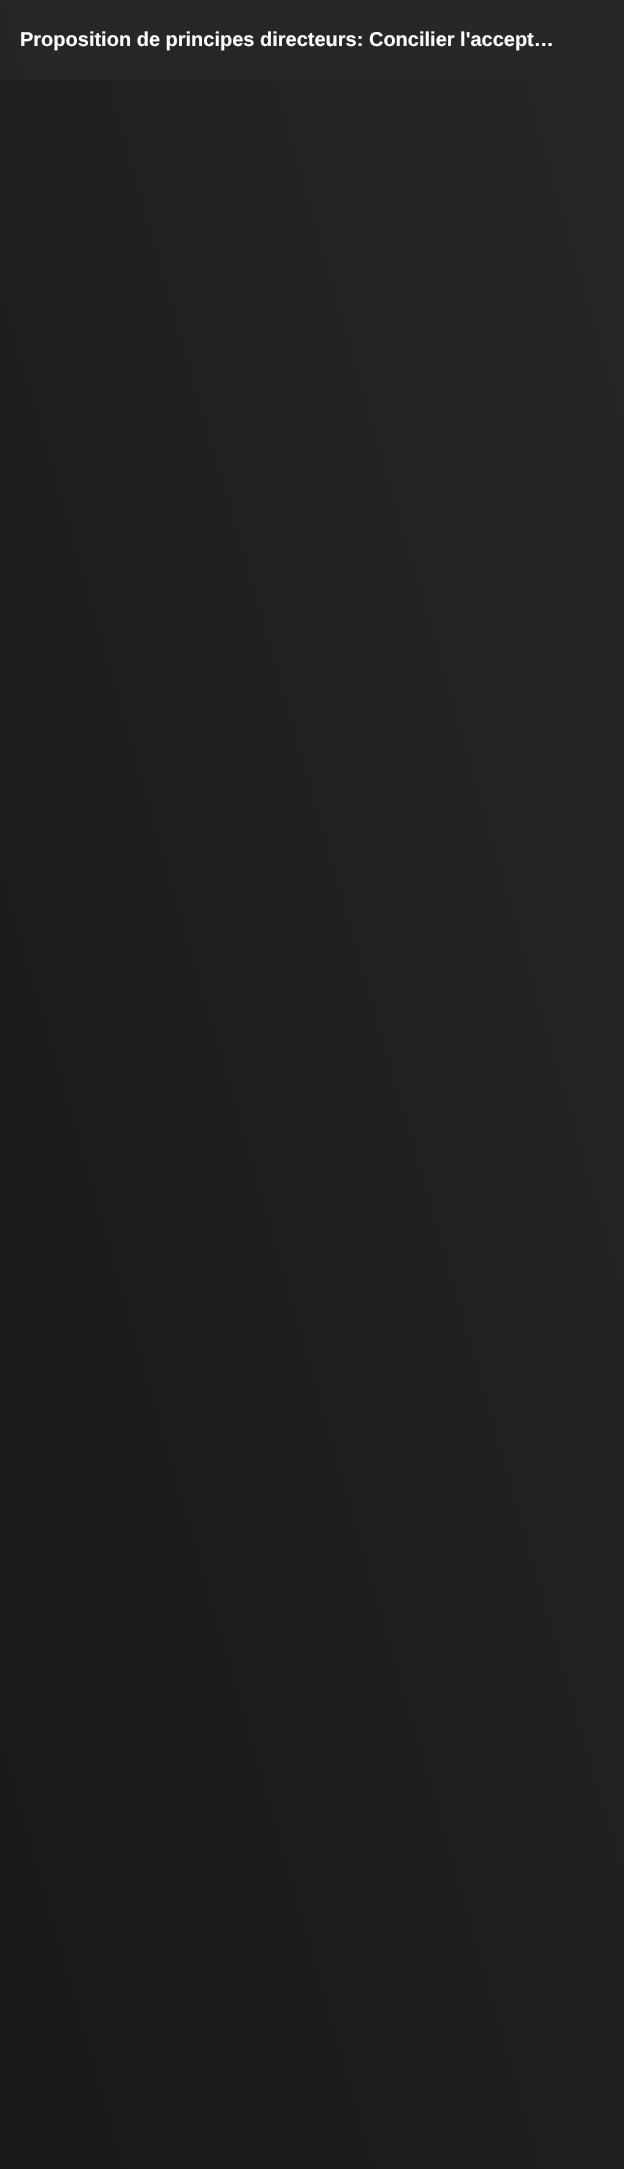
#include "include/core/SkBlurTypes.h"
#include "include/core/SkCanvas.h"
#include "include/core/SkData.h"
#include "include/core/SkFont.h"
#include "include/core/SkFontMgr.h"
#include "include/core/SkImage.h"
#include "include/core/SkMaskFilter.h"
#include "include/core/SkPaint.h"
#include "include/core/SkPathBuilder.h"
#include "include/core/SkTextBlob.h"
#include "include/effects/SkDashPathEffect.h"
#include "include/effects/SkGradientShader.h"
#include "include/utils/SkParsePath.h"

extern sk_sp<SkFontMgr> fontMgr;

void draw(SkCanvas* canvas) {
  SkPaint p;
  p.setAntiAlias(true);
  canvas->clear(SK_ColorWHITE);
  {
    const SkColor colors[] = {SkColorSetRGB(24, 24, 27), SkColorSetRGB(39, 39, 42)};
    const float stops[] = {0, 1};
    const SkPoint ends[] = {{-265, 1251}, {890, 919}};
    p.setShader(SkGradientShader::MakeLinear(ends, colors, stops, 2, SkTileMode::kClamp));
    p.setAlpha(255);
  }
  canvas->drawRect(SkRect::MakeLTRB(0, 80, 624, 2169), p);
  {
    const SkColor colors[] = {SkColorSetRGB(36, 36, 39), SkColorSetRGB(39, 39, 42)};
    const float stops[] = {0, 1};
    const SkPoint ends[] = {{-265, 1251}, {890, 919}};
    p.setShader(SkGradientShader::MakeLinear(ends, colors, stops, 2, SkTileMode::kClamp));
    p.setAlpha(255);
  }
  canvas->drawRect(SkRect::MakeLTRB(0, 0, 624, 79), p);
  p.setShader(nullptr);
  p.setColor(SkColorSetRGB(39, 39, 42));
  canvas->drawRect(SkRect::MakeLTRB(0, 79, 624, 80), p);
  SkFont font1(fontMgr->matchFamilyStyle("Liberation Sans", SkFontStyle::Bold()), 20);
  font1.setSubpixel(true);
  p.setColor(SK_ColorWHITE);
  canvas->drawString("Proposition de principes directeurs: Concilier l'accept…", 20, 46, font1, p);
}
